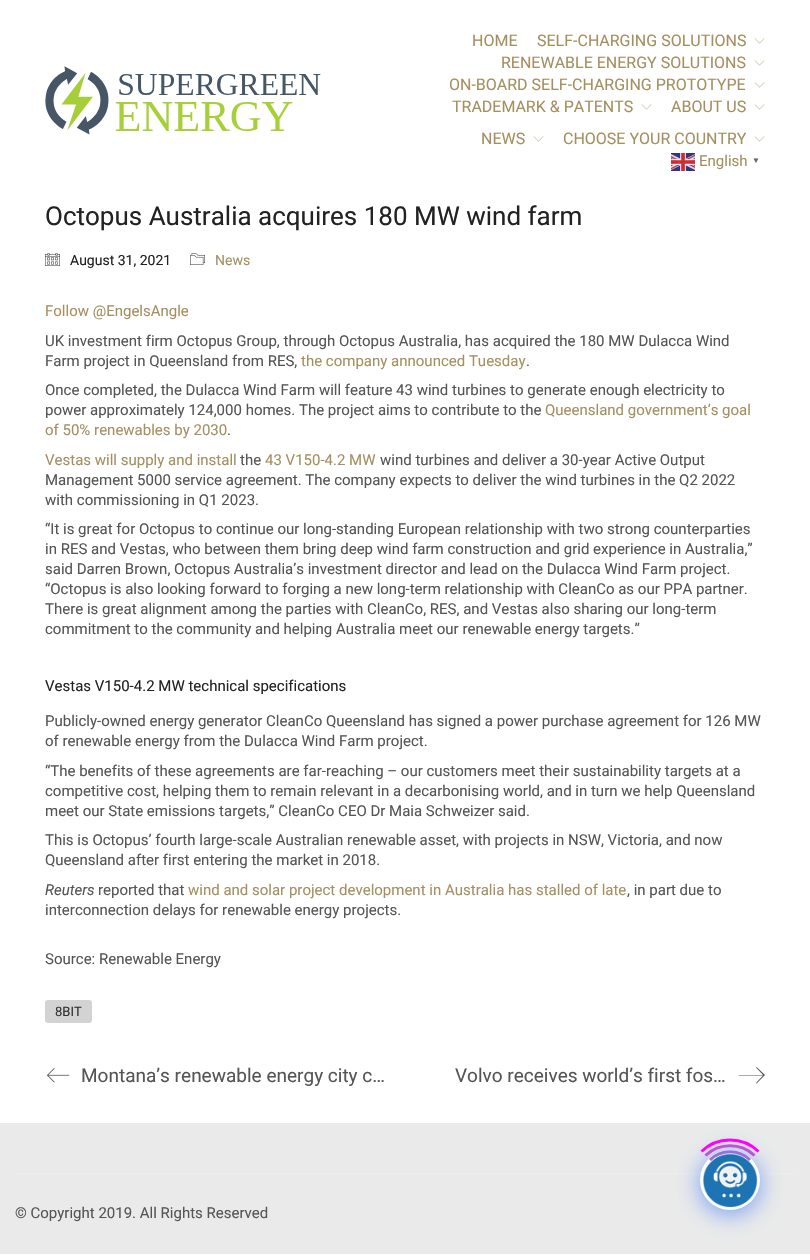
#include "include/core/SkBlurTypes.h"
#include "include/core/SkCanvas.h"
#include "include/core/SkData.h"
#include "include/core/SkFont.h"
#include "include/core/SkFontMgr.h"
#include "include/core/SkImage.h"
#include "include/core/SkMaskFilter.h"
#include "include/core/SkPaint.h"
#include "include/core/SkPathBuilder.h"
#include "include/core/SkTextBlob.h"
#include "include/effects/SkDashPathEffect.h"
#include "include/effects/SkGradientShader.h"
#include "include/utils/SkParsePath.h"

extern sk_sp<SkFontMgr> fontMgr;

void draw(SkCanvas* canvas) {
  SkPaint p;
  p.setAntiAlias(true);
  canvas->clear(SK_ColorWHITE);
  canvas->drawImageRect(SkImages::DeferredFromEncodedData(SkData::MakeFromFileName("images/1.png")), SkRect::MakeLTRB(45, 66, 321, 135), SkSamplingOptions());
  canvas->drawImageRect(SkImages::DeferredFromEncodedData(SkData::MakeFromFileName("images/2.png")), SkRect::MakeLTRB(754, 38, 765, 44), SkSamplingOptions());
  canvas->drawImageRect(SkImages::DeferredFromEncodedData(SkData::MakeFromFileName("images/2.png")), SkRect::MakeLTRB(754, 60, 765, 66), SkSamplingOptions());
  canvas->drawImageRect(SkImages::DeferredFromEncodedData(SkData::MakeFromFileName("images/2.png")), SkRect::MakeLTRB(754, 82, 765, 88), SkSamplingOptions());
  canvas->drawImageRect(SkImages::DeferredFromEncodedData(SkData::MakeFromFileName("images/2.png")), SkRect::MakeLTRB(641, 104, 652, 110), SkSamplingOptions());
  canvas->drawImageRect(SkImages::DeferredFromEncodedData(SkData::MakeFromFileName("images/2.png")), SkRect::MakeLTRB(754, 104, 765, 110), SkSamplingOptions());
  canvas->drawImageRect(SkImages::DeferredFromEncodedData(SkData::MakeFromFileName("images/2.png")), SkRect::MakeLTRB(533, 136, 544, 142), SkSamplingOptions());
  canvas->drawImageRect(SkImages::DeferredFromEncodedData(SkData::MakeFromFileName("images/2.png")), SkRect::MakeLTRB(754, 136, 765, 142), SkSamplingOptions());
  canvas->drawImageRect(SkImages::DeferredFromEncodedData(SkData::MakeFromFileName("images/3.png")), SkRect::MakeLTRB(671, 153, 695, 171), SkSamplingOptions());
  canvas->drawImageRect(SkImages::DeferredFromEncodedData(SkData::MakeFromFileName("images/4.png")), SkRect::MakeLTRB(45, 253, 60, 266), SkSamplingOptions());
  canvas->drawImageRect(SkImages::DeferredFromEncodedData(SkData::MakeFromFileName("images/5.png")), SkRect::MakeLTRB(190, 253, 205, 265), SkSamplingOptions());
  p.setColor(SkColorSetRGB(211, 211, 211));
  canvas->drawRoundRect(SkRect::MakeLTRB(45, 1000, 92, 1023), 3, 3, p);
  canvas->drawImageRect(SkImages::DeferredFromEncodedData(SkData::MakeFromFileName("images/6.png")), SkRect::MakeLTRB(46, 1068, 70, 1083), SkSamplingOptions());
  p.setColor(SkColorSetRGB(85, 85, 85));
  canvas->drawPath(SkPathBuilder().moveTo(756.5f, 1067).lineTo(756, 1067.5f).lineTo(763, 1075).lineTo(739, 1075).lineTo(739, 1075.5f).lineTo(763, 1075.5f).lineTo(756, 1083).lineTo(756.5f, 1083.5f).lineTo(765, 1075).close().detach(), p);
  p.setColor(SkColorSetRGB(234, 234, 234));
  canvas->drawRect(SkRect::MakeLTRB(0, 1123, 810, 1254), p);
  p.setColor(SkColorSetRGB(238, 238, 238));
  canvas->drawRect(SkRect::MakeLTRB(15, 1173, 795, 1174), p);
  p.setColor(SkColorSetARGB(128, 0, 77, 255));
  p.setMaskFilter(SkMaskFilter::MakeBlur(kNormal_SkBlurStyle, 12));
  canvas->drawRoundRect(SkRect::MakeLTRB(700, 1154, 760, 1214), 30, 30, p);
  p.setMaskFilter(nullptr);
  p.setColor(SK_ColorWHITE);
  canvas->drawCircle(730, 1180, 30, p);
  canvas->drawImageRect(SkImages::DeferredFromEncodedData(SkData::MakeFromFileName("images/7.png")), SkRect::MakeLTRB(702, 1153, 758, 1208), SkSamplingOptions());
  p.setStyle(SkPaint::kStroke_Style);
  p.setStrokeWidth(3);
  p.setColor(SkColorSetRGB(147, 112, 219));
  canvas->drawPath(SkPathBuilder().moveTo(710, 1160).cubicTo(721, 1149, 739, 1149, 750, 1160).detach(), p);
  p.setColor(SkColorSetRGB(186, 85, 211));
  canvas->drawPath(SkPathBuilder().moveTo(705.5f, 1155.5f).cubicTo(719, 1142.5f, 741, 1142.5f, 754.5f, 1155.5f).detach(), p);
  p.setColor(SkColorSetRGB(255, 0, 255));
  canvas->drawPath(SkPathBuilder().moveTo(701.5f, 1151.5f).cubicTo(717, 1136, 743, 1136, 758.5f, 1151.5f).detach(), p);
  SkFont font1(fontMgr->matchFamilyStyle("Roboto", SkFontStyle::Normal()), 16);
  font1.setSubpixel(true);
  p.setStyle(SkPaint::kFill_Style);
  p.setColor(SkColorSetRGB(165, 143, 96));
  canvas->drawString("HOME", 472, 46, font1, p);
  canvas->drawString("SELF-CHARGING SOLUTIONS", 537, 46, font1, p);
  canvas->drawString("RENEWABLE ENERGY SOLUTIONS", 501, 68, font1, p);
  canvas->drawString("ON-BOARD SELF-CHARGING PROTOTYPE", 449, 90, font1, p);
  canvas->drawString("TRADEMARK & PATENTS", 452, 112, font1, p);
  canvas->drawString("ABOUT US", 671, 112, font1, p);
  canvas->drawString("NEWS", 481, 144, font1, p);
  canvas->drawString("CHOOSE YOUR COUNTRY", 563, 144, font1, p);
  SkFont font2(fontMgr->matchFamilyStyle("Roboto", SkFontStyle::Normal()), 15);
  font2.setSubpixel(true);
  canvas->drawString("English", 699, 166, font2, p);
  SkFont font3(fontMgr->matchFamilyStyle("Liberation Sans", SkFontStyle::Bold()), 8);
  font3.setSubpixel(true);
  p.setColor(SkColorSetRGB(102, 102, 102));
  canvas->drawString("▼", 752, 163, font3, p);
  SkFont font4(fontMgr->matchFamilyStyle("Roboto", SkFontStyle::Normal()), 26);
  font4.setSubpixel(true);
  p.setColor(SkColorSetRGB(34, 34, 34));
  canvas->drawString("Octopus Australia acquires 180 MW wind farm", 45, 225, font4, p);
  SkFont font5(fontMgr->matchFamilyStyle("Roboto", SkFontStyle::Normal()), 14);
  font5.setSubpixel(true);
  canvas->drawString("August 31, 2021", 70, 265, font5, p);
  p.setColor(SkColorSetRGB(165, 143, 96));
  canvas->drawString("News", 215, 265, font5, p);
  canvas->drawString("Follow @EngelsAngle", 45, 316, font2, p);
  p.setColor(SkColorSetRGB(85, 85, 85));
  canvas->drawString("UK investment firm Octopus Group, through Octopus Australia, has acquired the 180 MW Dulacca Wind", 45, 346, font2, p);
  canvas->drawString("Farm project in Queensland from RES,", 45, 366, font2, p);
  p.setColor(SkColorSetRGB(165, 143, 96));
  canvas->drawString("the company announced Tuesday", 301, 366, font2, p);
  p.setColor(SkColorSetRGB(85, 85, 85));
  canvas->drawString(".", 526, 366, font2, p);
  canvas->drawString("Once completed, the Dulacca Wind Farm will feature 43 wind turbines to generate enough electricity to", 45, 395, font2, p);
  canvas->drawString("power approximately 124,000 homes. The project aims to contribute to the", 45, 415, font2, p);
  p.setColor(SkColorSetRGB(165, 143, 96));
  canvas->drawString("Queensland government’s goal", 545, 415, font2, p);
  canvas->drawString("of 50% renewables by 2030", 45, 435, font2, p);
  p.setColor(SkColorSetRGB(85, 85, 85));
  canvas->drawString(".", 227, 435, font2, p);
  p.setColor(SkColorSetRGB(165, 143, 96));
  canvas->drawString("Vestas will supply and install", 45, 465, font2, p);
  p.setColor(SkColorSetRGB(85, 85, 85));
  canvas->drawString("the", 240, 465, font2, p);
  p.setColor(SkColorSetRGB(165, 143, 96));
  canvas->drawString("43 V150-4.2 MW", 265, 465, font2, p);
  p.setColor(SkColorSetRGB(85, 85, 85));
  canvas->drawString("wind turbines and deliver a 30-year Active Output", 380, 465, font2, p);
  canvas->drawString("Management 5000 service agreement. The company expects to deliver the wind turbines in the Q2 2022", 45, 485, font2, p);
  canvas->drawString("with commissioning in Q1 2023.", 45, 505, font2, p);
  canvas->drawString("“It is great for Octopus to continue our long-standing European relationship with two strong counterparties", 45, 534, font2, p);
  canvas->drawString("in RES and Vestas, who between them bring deep wind farm construction and grid experience in Australia,”", 45, 554, font2, p);
  canvas->drawString("said Darren Brown, Octopus Australia’s investment director and lead on the Dulacca Wind Farm project.", 45, 574, font2, p);
  canvas->drawString("“Octopus is also looking forward to forging a new long-term relationship with CleanCo as our PPA partner.", 45, 594, font2, p);
  canvas->drawString("There is great alignment among the parties with CleanCo, RES, and Vestas also sharing our long-term", 45, 614, font2, p);
  canvas->drawString("commitment to the community and helping Australia meet our renewable energy targets.”", 45, 634, font2, p);
  p.setColor(SkColorSetRGB(34, 34, 34));
  canvas->drawString("Vestas V150-4.2 MW technical specifications", 45, 691, font2, p);
  p.setColor(SkColorSetRGB(85, 85, 85));
  canvas->drawString("Publicly-owned energy generator CleanCo Queensland has signed a power purchase agreement for 126 MW", 45, 726, font2, p);
  canvas->drawString("of renewable energy from the Dulacca Wind Farm project.", 45, 746, font2, p);
  canvas->drawString("“The benefits of these agreements are far-reaching – our customers meet their sustainability targets at a", 45, 776, font2, p);
  canvas->drawString("competitive cost, helping them to remain relevant in a decarbonising world, and in turn we help Queensland", 45, 796, font2, p);
  canvas->drawString("meet our State emissions targets,” CleanCo CEO Dr Maia Schweizer said.", 45, 816, font2, p);
  canvas->drawString("This is Octopus’ fourth large-scale Australian renewable asset, with projects in NSW, Victoria, and now", 45, 845, font2, p);
  canvas->drawString("Queensland after first entering the market in 2018.", 45, 865, font2, p);
  SkFont font6(fontMgr->matchFamilyStyle("Roboto", SkFontStyle::Italic()), 15);
  font6.setSubpixel(true);
  canvas->drawString("Reuters", 45, 895, font6, p);
  canvas->drawString("reported that", 98, 895, font2, p);
  canvas->drawString(", in part due to", 627, 895, font2, p);
  p.setColor(SkColorSetRGB(165, 143, 96));
  canvas->drawString("wind and solar project development in Australia has stalled of late", 188, 895, font2, p);
  p.setColor(SkColorSetRGB(85, 85, 85));
  canvas->drawString("interconnection delays for renewable energy projects.", 45, 915, font2, p);
  canvas->drawString("Source: Renewable Energy", 45, 964, font2, p);
  SkFont font7(fontMgr->matchFamilyStyle("Roboto", SkFontStyle::Normal()), 13);
  font7.setSubpixel(true);
  p.setColor(SkColorSetRGB(51, 51, 51));
  canvas->drawString("8BIT", 55, 1016, font7, p);
  SkFont font8(fontMgr->matchFamilyStyle("Roboto", SkFontStyle::Normal()), 19);
  font8.setSubpixel(true);
  p.setColor(SkColorSetRGB(85, 85, 85));
  canvas->drawString("Montana’s renewable energy city c…", 81, 1082, font8, p);
  canvas->drawString("Volvo receives world’s first fos…", 455, 1082, font8, p);
  canvas->drawString("© Copyright 2019. All Rights Reserved", 15, 1218, font2, p);
}
